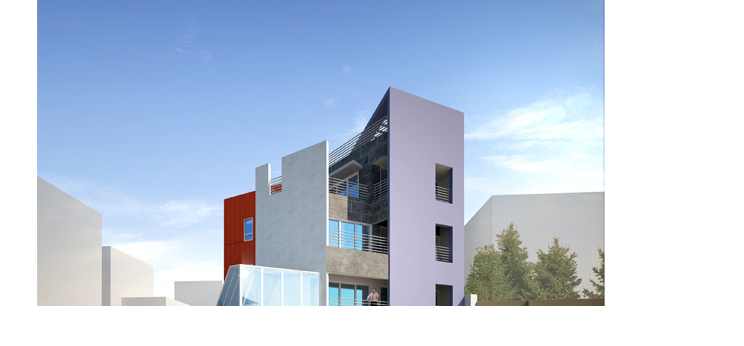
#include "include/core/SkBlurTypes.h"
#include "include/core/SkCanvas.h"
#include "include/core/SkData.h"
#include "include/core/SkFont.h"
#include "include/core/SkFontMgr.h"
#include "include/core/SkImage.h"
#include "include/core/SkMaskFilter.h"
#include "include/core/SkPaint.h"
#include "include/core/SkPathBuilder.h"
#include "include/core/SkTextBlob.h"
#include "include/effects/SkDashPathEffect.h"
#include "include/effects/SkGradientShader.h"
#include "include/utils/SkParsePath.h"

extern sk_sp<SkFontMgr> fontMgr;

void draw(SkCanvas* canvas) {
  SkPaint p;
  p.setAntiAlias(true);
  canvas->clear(SK_ColorWHITE);
  canvas->drawImageRect(SkImages::DeferredFromEncodedData(SkData::MakeFromFileName("images/1.png")), SkRect::MakeLTRB(37, 0, 606, 306), SkSamplingOptions());
}
